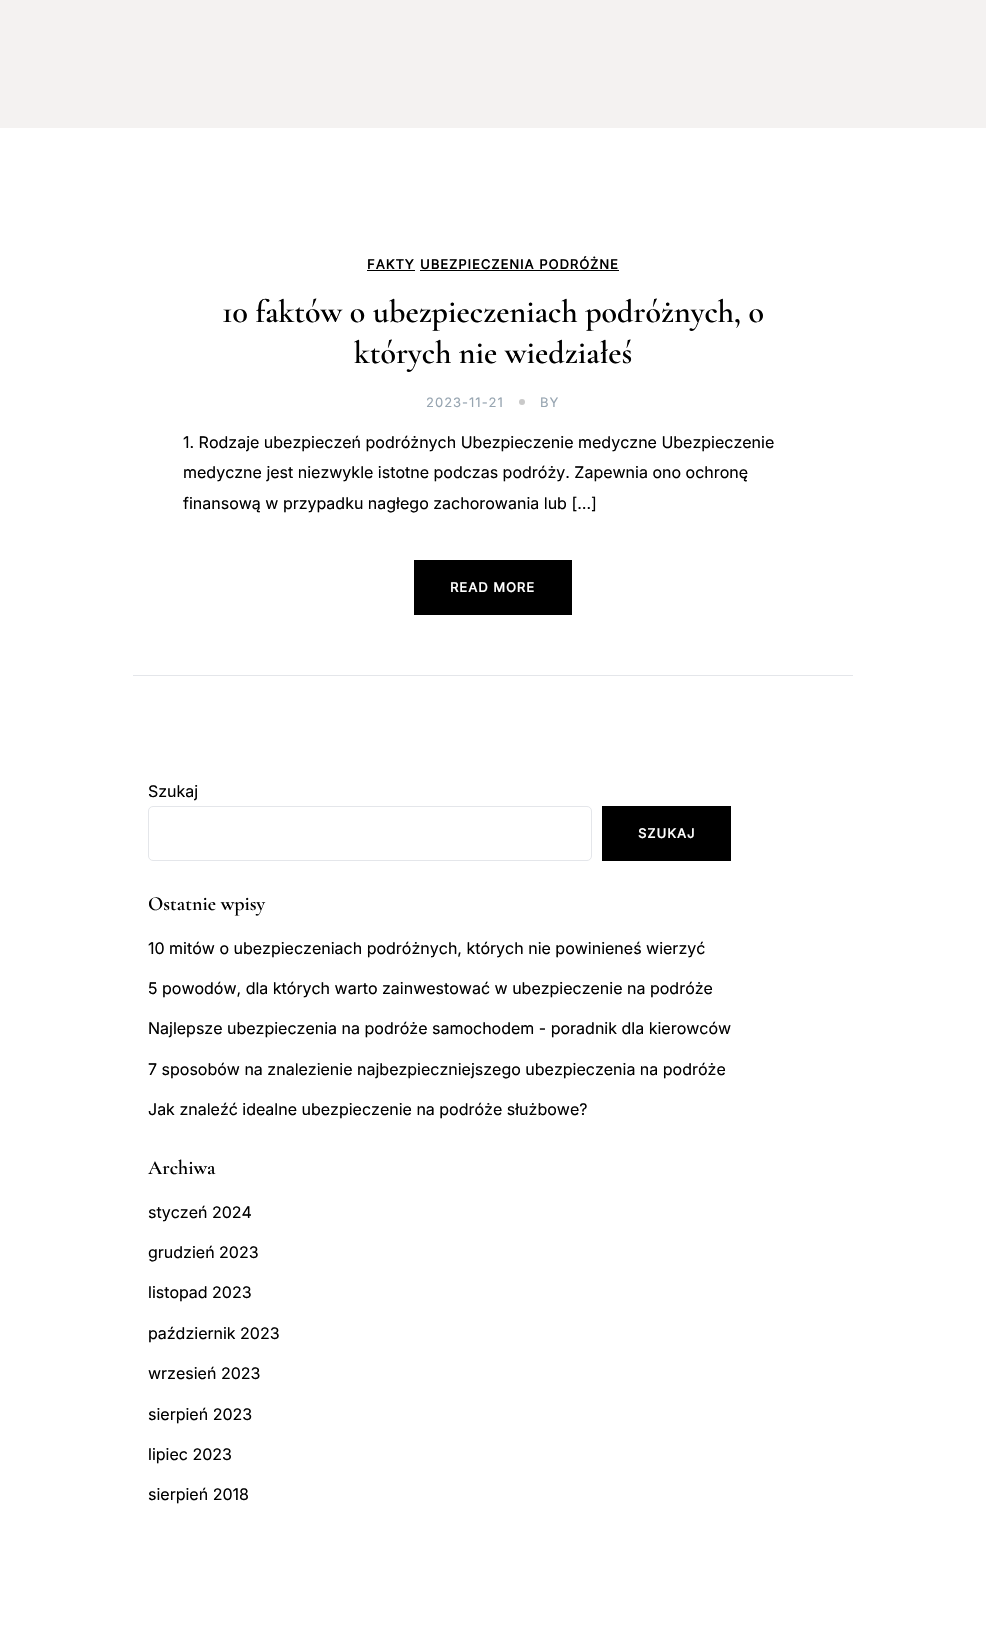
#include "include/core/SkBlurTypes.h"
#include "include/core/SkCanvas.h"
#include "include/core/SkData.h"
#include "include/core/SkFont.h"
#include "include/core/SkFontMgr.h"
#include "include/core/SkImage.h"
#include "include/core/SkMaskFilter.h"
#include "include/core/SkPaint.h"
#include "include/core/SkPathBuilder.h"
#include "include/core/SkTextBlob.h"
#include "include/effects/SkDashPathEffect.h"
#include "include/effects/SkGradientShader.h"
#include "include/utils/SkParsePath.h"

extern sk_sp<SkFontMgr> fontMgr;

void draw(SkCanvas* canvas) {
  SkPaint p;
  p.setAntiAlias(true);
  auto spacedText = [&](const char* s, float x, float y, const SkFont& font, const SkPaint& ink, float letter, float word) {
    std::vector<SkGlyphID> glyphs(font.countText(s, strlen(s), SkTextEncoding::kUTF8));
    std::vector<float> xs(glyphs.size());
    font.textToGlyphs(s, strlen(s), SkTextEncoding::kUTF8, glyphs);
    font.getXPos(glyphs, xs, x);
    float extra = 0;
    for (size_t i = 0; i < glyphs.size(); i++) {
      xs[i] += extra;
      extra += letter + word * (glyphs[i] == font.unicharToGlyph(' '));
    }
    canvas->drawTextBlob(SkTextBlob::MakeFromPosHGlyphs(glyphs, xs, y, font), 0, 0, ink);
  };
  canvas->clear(SK_ColorWHITE);
  p.setColor(SkColorSetRGB(244, 242, 241));
  canvas->drawRect(SkRect::MakeLTRB(0, 0, 986, 128), p);
  p.setColor(SkColorSetRGB(228, 230, 234));
  canvas->drawRect(SkRect::MakeLTRB(133, 675, 853, 676), p);
  p.setColor(SK_ColorBLACK);
  canvas->drawRect(SkRect::MakeLTRB(367, 270, 415, 271), p);
  canvas->drawRect(SkRect::MakeLTRB(420, 270, 619, 271), p);
  p.setColor(SkColorSetRGB(201, 201, 201));
  canvas->drawCircle(522, 402, 3, p);
  p.setColor(SK_ColorBLACK);
  canvas->drawRect(SkRect::MakeLTRB(414, 560, 572, 615), p);
  p.setStyle(SkPaint::kStroke_Style);
  p.setStrokeWidth(1);
  p.setColor(SkColorSetRGB(228, 230, 234));
  canvas->drawRoundRect(SkRect::MakeLTRB(148.5f, 806.5f, 591.5f, 860.5f), 4.5f, 4.5f, p);
  p.setStyle(SkPaint::kFill_Style);
  p.setColor(SK_ColorBLACK);
  canvas->drawRect(SkRect::MakeLTRB(602, 806, 731, 861), p);
  SkFont font1(fontMgr->matchFamilyStyle("Inter", SkFontStyle::Bold()), 13);
  font1.setSubpixel(true);
  spacedText("FAKTY", 367, 269, font1, p, 1, 0);
  spacedText("UBEZPIECZENIA PODRÓŻNE", 420, 269, font1, p, 1, 0);
  SkFont font2(fontMgr->matchFamilyStyle("Cormorant Garamond", SkFontStyle(600, SkFontStyle::kNormal_Width, SkFontStyle::kUpright_Slant)), 32);
  font2.setSubpixel(true);
  canvas->drawString("10 faktów o ubezpieczeniach podróżnych, o", 222, 322, font2, p);
  canvas->drawString("których nie wiedziałeś", 354, 363, font2, p);
  SkFont font3(fontMgr->matchFamilyStyle("Inter", SkFontStyle::Normal()), 13);
  font3.setSubpixel(true);
  p.setColor(SkColorSetRGB(151, 165, 177));
  spacedText("2023-11-21", 426, 407, font3, p, 1, 0);
  spacedText("BY", 540, 407, font3, p, 1, 0);
  SkFont font4(fontMgr->matchFamilyStyle("Inter", SkFontStyle::Normal()), 16);
  font4.setSubpixel(true);
  p.setColor(SK_ColorBLACK);
  canvas->drawString("1. Rodzaje ubezpieczeń podróżnych Ubezpieczenie medyczne Ubezpieczenie", 183, 448, font4, p);
  canvas->drawString("medyczne jest niezwykle istotne podczas podróży. Zapewnia ono ochronę", 183, 478, font4, p);
  canvas->drawString("finansową w przypadku nagłego zachorowania lub […]", 183, 509, font4, p);
  p.setColor(SK_ColorWHITE);
  spacedText("READ MORE", 450, 592, font1, p, 1, 0);
  p.setColor(SK_ColorBLACK);
  canvas->drawString("Szukaj", 148, 797, font4, p);
  p.setColor(SK_ColorWHITE);
  spacedText("SZUKAJ", 638, 838, font1, p, 1, 0);
  SkFont font5(fontMgr->matchFamilyStyle("Cormorant Garamond", SkFontStyle(600, SkFontStyle::kNormal_Width, SkFontStyle::kUpright_Slant)), 20);
  font5.setSubpixel(true);
  p.setColor(SK_ColorBLACK);
  canvas->drawString("Ostatnie wpisy", 148, 910, font5, p);
  canvas->drawString("10 mitów o ubezpieczeniach podróżnych, których nie powinieneś wierzyć", 148, 954, font4, p);
  canvas->drawString("5 powodów, dla których warto zainwestować w ubezpieczenie na podróże", 148, 994, font4, p);
  canvas->drawString("Najlepsze ubezpieczenia na podróże samochodem - poradnik dla kierowców", 148, 1034, font4, p);
  canvas->drawString("7 sposobów na znalezienie najbezpieczniejszego ubezpieczenia na podróże", 148, 1075, font4, p);
  canvas->drawString("Jak znaleźć idealne ubezpieczenie na podróże służbowe?", 148, 1115, font4, p);
  canvas->drawString("Archiwa", 148, 1174, font5, p);
  canvas->drawString("styczeń 2024", 148, 1218, font4, p);
  canvas->drawString("grudzień 2023", 148, 1258, font4, p);
  canvas->drawString("listopad 2023", 148, 1298, font4, p);
  canvas->drawString("październik 2023", 148, 1339, font4, p);
  canvas->drawString("wrzesień 2023", 148, 1379, font4, p);
  canvas->drawString("sierpień 2023", 148, 1420, font4, p);
  canvas->drawString("lipiec 2023", 148, 1460, font4, p);
  canvas->drawString("sierpień 2018", 148, 1500, font4, p);
}
